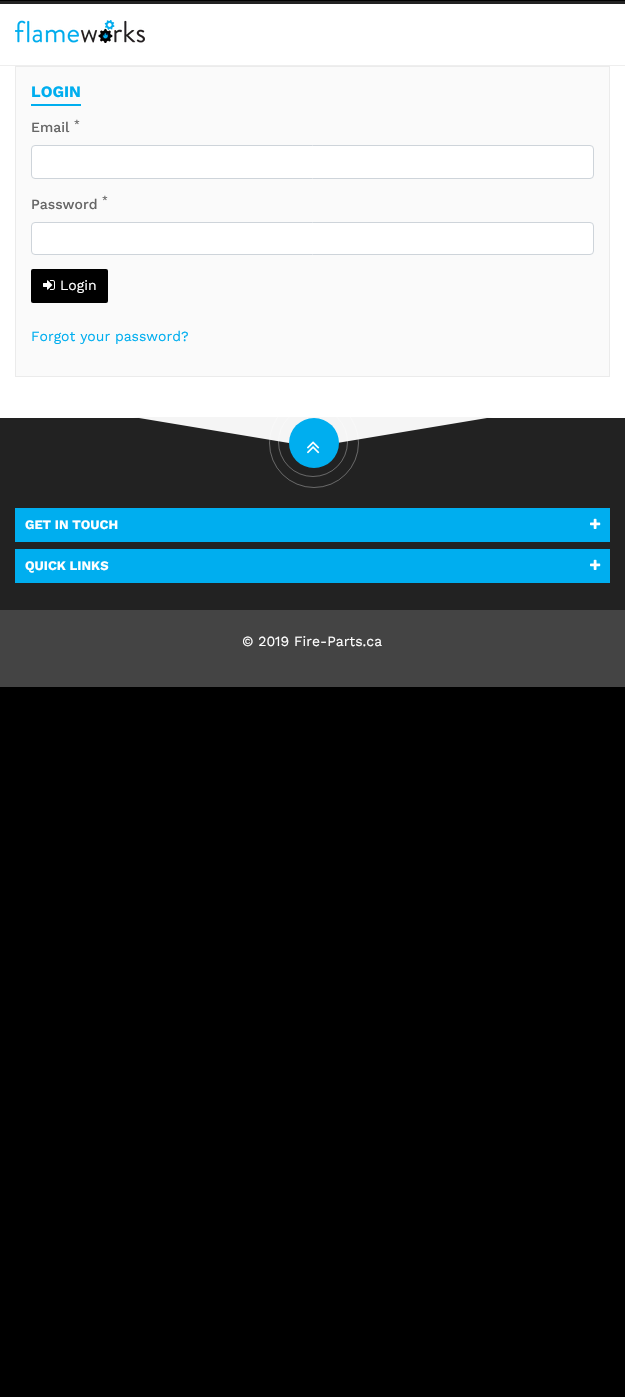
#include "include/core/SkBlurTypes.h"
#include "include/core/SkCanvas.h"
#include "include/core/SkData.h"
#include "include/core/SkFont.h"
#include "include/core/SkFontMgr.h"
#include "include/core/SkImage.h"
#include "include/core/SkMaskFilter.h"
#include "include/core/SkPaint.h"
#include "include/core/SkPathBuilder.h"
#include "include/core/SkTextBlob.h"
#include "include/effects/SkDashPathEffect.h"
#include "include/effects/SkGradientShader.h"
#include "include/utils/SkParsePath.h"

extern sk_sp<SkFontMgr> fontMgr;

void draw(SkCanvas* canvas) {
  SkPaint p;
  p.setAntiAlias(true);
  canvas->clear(SK_ColorBLACK);
  p.setColor(SK_ColorWHITE);
  canvas->drawRect(SkRect::MakeLTRB(0, 4, 625, 65), p);
  p.setColor(SkColorSetRGB(34, 34, 34));
  canvas->drawRect(SkRect::MakeLTRB(0, 1, 625, 4), p);
  p.setColor(SkColorSetRGB(238, 238, 238));
  canvas->drawRect(SkRect::MakeLTRB(0, 65, 625, 66), p);
  canvas->drawImageRect(SkImages::DeferredFromEncodedData(SkData::MakeFromFileName("images/1.png")), SkRect::MakeLTRB(15, 20, 145, 43), SkSamplingOptions());
  p.setColor(SK_ColorWHITE);
  canvas->drawRect(SkRect::MakeLTRB(0, 66, 625, 418), p);
  p.setColor(SkColorSetRGB(250, 250, 250));
  canvas->drawRect(SkRect::MakeLTRB(15.5f, 66.5f, 609.5f, 376.5f), p);
  p.setStyle(SkPaint::kStroke_Style);
  p.setStrokeWidth(1);
  p.setColor(SkColorSetRGB(235, 235, 235));
  canvas->drawRect(SkRect::MakeLTRB(15.5f, 66.5f, 609.5f, 376.5f), p);
  p.setStyle(SkPaint::kFill_Style);
  p.setColor(SkColorSetRGB(0, 174, 239));
  canvas->drawRect(SkRect::MakeLTRB(31, 104, 81, 106), p);
  p.setColor(SK_ColorWHITE);
  canvas->drawRoundRect(SkRect::MakeLTRB(32, 146, 593, 178), 2.5f, 2.5f, p);
  p.setStyle(SkPaint::kStroke_Style);
  p.setColor(SkColorSetRGB(206, 212, 218));
  canvas->drawRoundRect(SkRect::MakeLTRB(31.5f, 145.5f, 593.5f, 178.5f), 3.5f, 3.5f, p);
  p.setStyle(SkPaint::kFill_Style);
  p.setColor(SK_ColorWHITE);
  canvas->drawRoundRect(SkRect::MakeLTRB(32, 223, 593, 254), 2.5f, 2.5f, p);
  p.setStyle(SkPaint::kStroke_Style);
  p.setColor(SkColorSetRGB(206, 212, 218));
  canvas->drawRoundRect(SkRect::MakeLTRB(31.5f, 222.5f, 593.5f, 254.5f), 3.5f, 3.5f, p);
  p.setStyle(SkPaint::kFill_Style);
  p.setColor(SK_ColorBLACK);
  canvas->drawRoundRect(SkRect::MakeLTRB(31, 269, 108, 303), 2, 2, p);
  canvas->drawImageRect(SkImages::DeferredFromEncodedData(SkData::MakeFromFileName("images/2.png")), SkRect::MakeLTRB(43, 280, 55, 290), SkSamplingOptions());
  p.setColor(SkColorSetRGB(34, 34, 34));
  canvas->drawRect(SkRect::MakeLTRB(0, 418, 625, 610), p);
  p.setColor(SkColorSetRGB(245, 245, 245));
  canvas->drawPath(SkPathBuilder().moveTo(133, 417).lineTo(493, 417).lineTo(313, 447).close().detach(), p);
  p.setStyle(SkPaint::kStroke_Style);
  p.setColor(SkColorSetARGB(82, 255, 255, 255));
  canvas->drawCircle(313, 442, 34.5f, p);
  p.setStyle(SkPaint::kFill_Style);
  p.setColor(SkColorSetRGB(0, 174, 239));
  canvas->drawCircle(314, 443, 25, p);
  p.setStyle(SkPaint::kStroke_Style);
  p.setColor(SkColorSetARGB(82, 255, 255, 255));
  canvas->drawCircle(314, 443, 44.5f, p);
  canvas->drawImageRect(SkImages::DeferredFromEncodedData(SkData::MakeFromFileName("images/3.png")), SkRect::MakeLTRB(307, 441, 320, 454), SkSamplingOptions());
  p.setStyle(SkPaint::kFill_Style);
  p.setColor(SkColorSetRGB(0, 174, 239));
  canvas->drawRect(SkRect::MakeLTRB(15, 508, 610, 542), p);
  canvas->drawImageRect(SkImages::DeferredFromEncodedData(SkData::MakeFromFileName("images/4.png")), SkRect::MakeLTRB(590, 518, 601, 529), SkSamplingOptions());
  canvas->drawRect(SkRect::MakeLTRB(15, 549, 610, 583), p);
  canvas->drawImageRect(SkImages::DeferredFromEncodedData(SkData::MakeFromFileName("images/4.png")), SkRect::MakeLTRB(590, 559, 601, 570), SkSamplingOptions());
  p.setColor(SkColorSetRGB(68, 68, 68));
  canvas->drawRect(SkRect::MakeLTRB(0, 610, 625, 687), p);
  SkFont font1(fontMgr->matchFamilyStyle("Work Sans", SkFontStyle::Bold()), 16);
  font1.setSubpixel(true);
  p.setColor(SkColorSetRGB(0, 174, 239));
  canvas->drawString("LOGIN", 31, 97, font1, p);
  SkFont font2(fontMgr->matchFamilyStyle("Work Sans", SkFontStyle(500, SkFontStyle::kNormal_Width, SkFontStyle::kUpright_Slant)), 14);
  font2.setSubpixel(true);
  p.setColor(SkColorSetRGB(102, 102, 102));
  canvas->drawString("Email", 31, 132, font2, p);
  SkFont font3(fontMgr->matchFamilyStyle("Work Sans", SkFontStyle(500, SkFontStyle::kNormal_Width, SkFontStyle::kUpright_Slant)), 10);
  font3.setSubpixel(true);
  canvas->drawString("*", 74, 127, font3, p);
  canvas->drawString("Password", 31, 209, font2, p);
  canvas->drawString("*", 102, 203, font3, p);
  SkFont font4(fontMgr->matchFamilyStyle("Work Sans", SkFontStyle::Normal()), 14);
  font4.setSubpixel(true);
  p.setColor(SK_ColorWHITE);
  canvas->drawString("Login", 60, 290, font4, p);
  p.setColor(SkColorSetRGB(0, 174, 239));
  canvas->drawString("Forgot your password?", 31, 341, font4, p);
  SkFont font5(fontMgr->matchFamilyStyle("Work Sans", SkFontStyle::Bold()), 13);
  font5.setSubpixel(true);
  p.setColor(SK_ColorWHITE);
  canvas->drawString("GET IN TOUCH", 25, 529, font5, p);
  canvas->drawString("QUICK LINKS", 25, 570, font5, p);
  canvas->drawString("© 2019 Fire-Parts.ca", 242, 646, font4, p);
}
